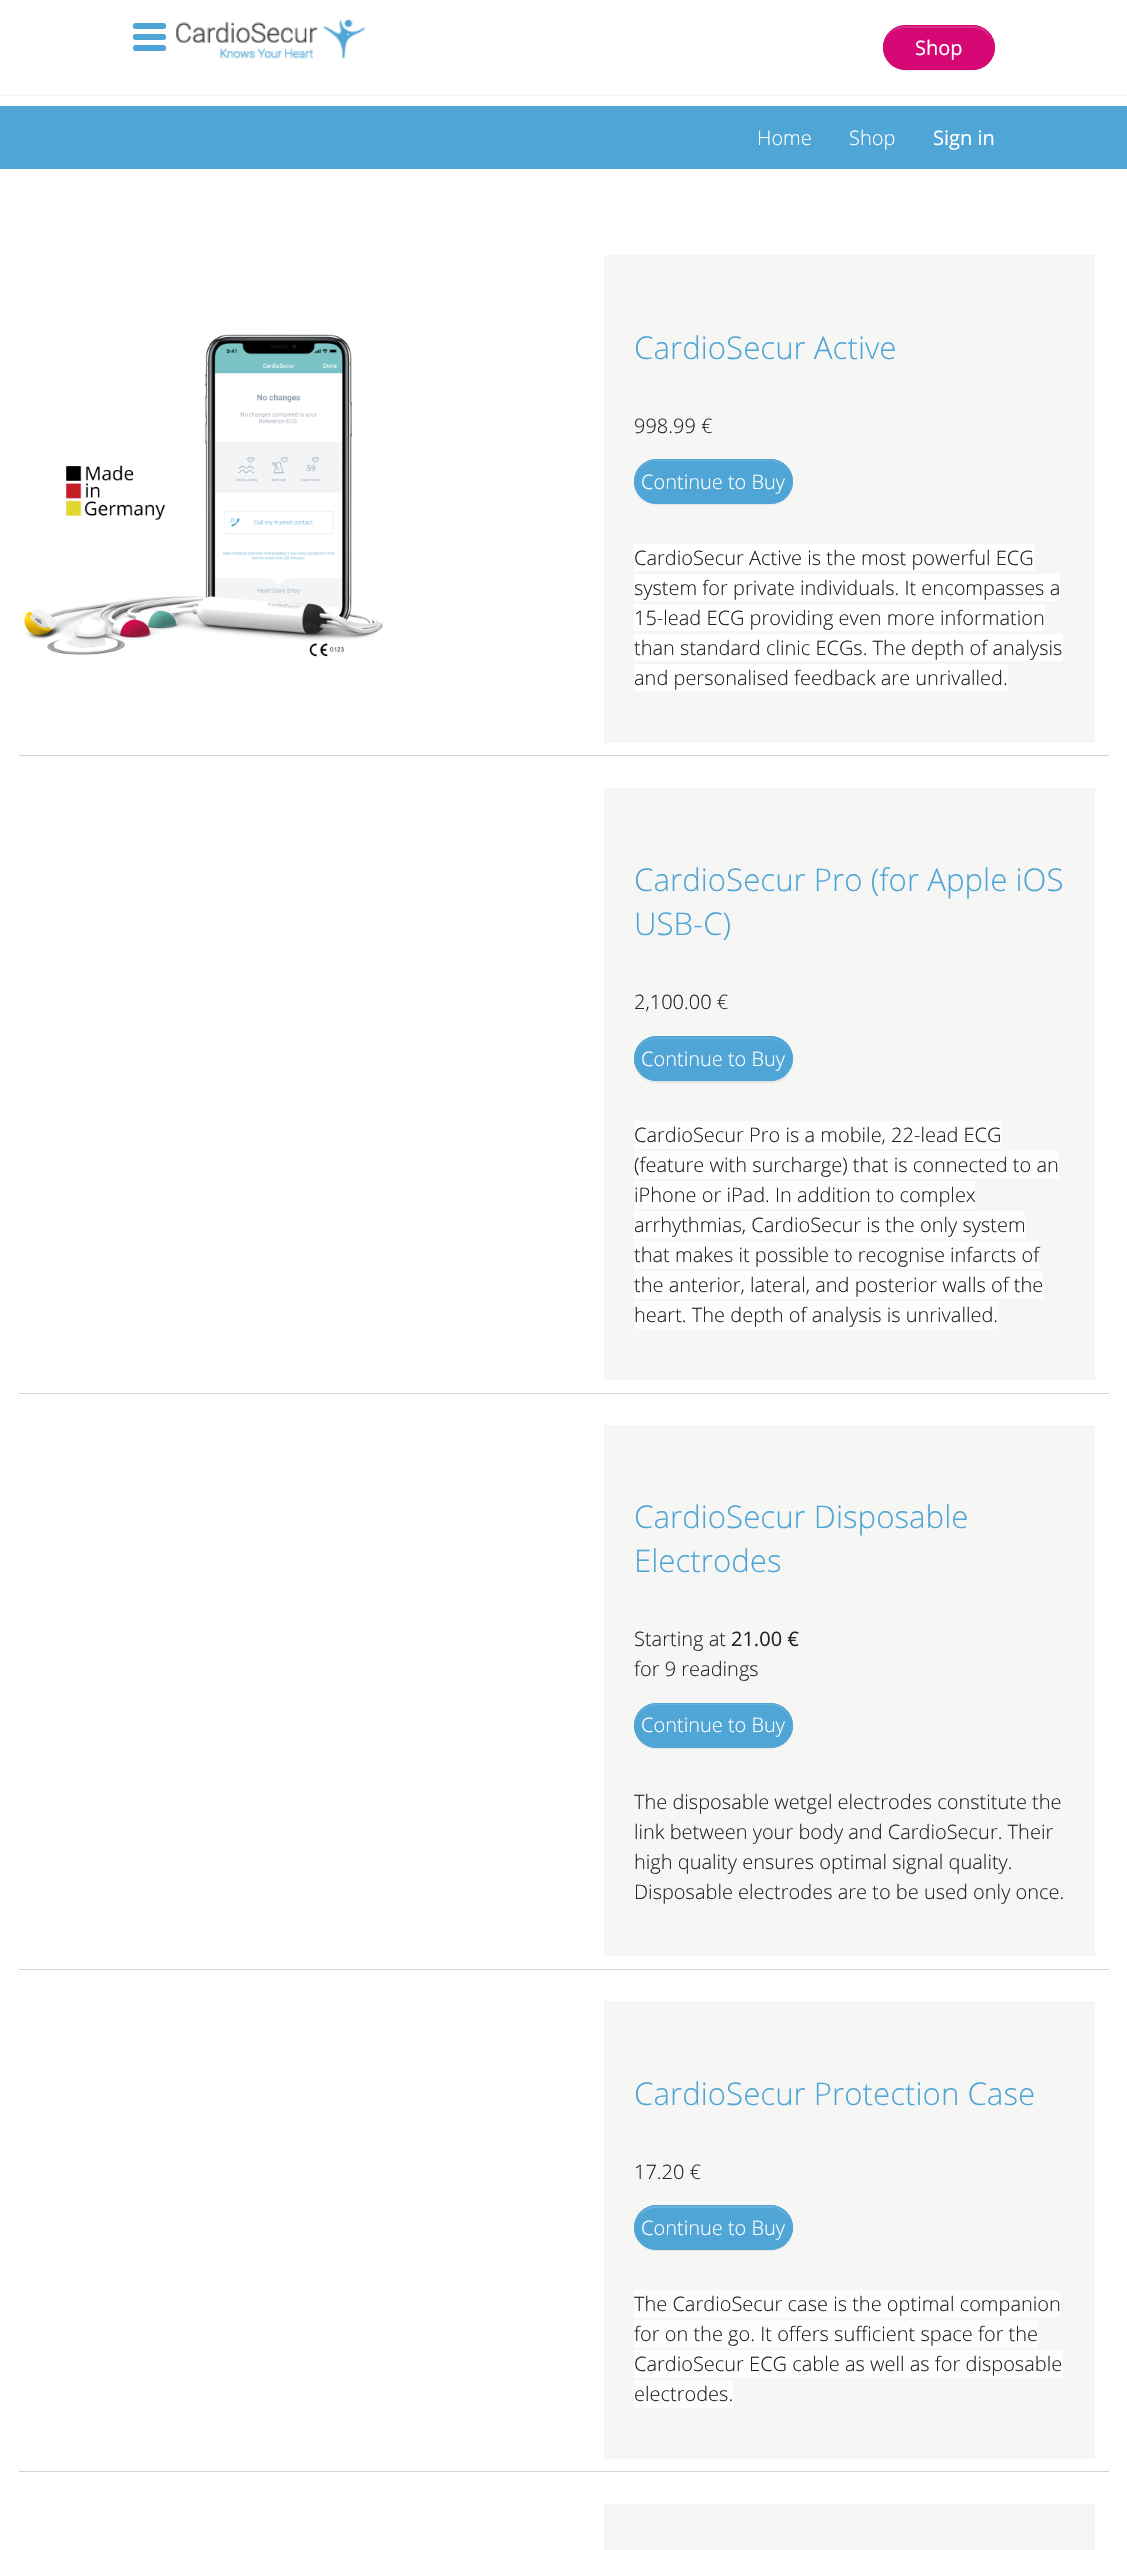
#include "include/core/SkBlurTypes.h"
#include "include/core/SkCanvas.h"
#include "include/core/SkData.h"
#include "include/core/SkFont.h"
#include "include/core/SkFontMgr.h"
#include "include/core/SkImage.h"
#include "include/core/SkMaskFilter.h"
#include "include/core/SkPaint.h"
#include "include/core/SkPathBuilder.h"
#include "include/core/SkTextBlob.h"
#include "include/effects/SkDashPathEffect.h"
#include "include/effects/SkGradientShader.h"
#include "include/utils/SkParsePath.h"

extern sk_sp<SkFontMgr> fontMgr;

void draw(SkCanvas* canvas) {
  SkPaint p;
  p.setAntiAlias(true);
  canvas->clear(SK_ColorWHITE);
  p.setColor(SkColorSetRGB(245, 245, 244));
  canvas->drawRect(SkRect::MakeLTRB(0, 95, 1127, 96), p);
  p.setColor(SkColorSetRGB(79, 165, 213));
  canvas->drawRoundRect(SkRect::MakeLTRB(133, 23, 166, 29), 2.5f, 2.5f, p);
  canvas->drawRoundRect(SkRect::MakeLTRB(133, 34, 166, 40), 2.5f, 2.5f, p);
  canvas->drawRoundRect(SkRect::MakeLTRB(133, 45, 166, 51), 2.5f, 2.5f, p);
  canvas->drawImageRect(SkImages::DeferredFromEncodedData(SkData::MakeFromFileName("images/1.png")), SkRect::MakeLTRB(176, 18, 366, 59), SkSamplingOptions());
  p.setColor(SkColorSetARGB(18, 0, 0, 0));
  p.setMaskFilter(SkMaskFilter::MakeBlur(kNormal_SkBlurStyle, 0.5f));
  canvas->drawRoundRect(SkRect::MakeLTRB(883, 26, 995, 71), 22.5f, 22.5f, p);
  p.setMaskFilter(nullptr);
  p.setColor(SkColorSetRGB(212, 7, 117));
  canvas->drawRoundRect(SkRect::MakeLTRB(883, 25, 995, 70), 22.5f, 22.5f, p);
  p.setColor(SkColorSetRGB(218, 44, 138));
  canvas->drawPath(SkPathBuilder().moveTo(905, 28).lineTo(972, 28).cubicTo(984, 28, 994, 37, 994, 48).cubicTo(994, 38, 987, 28, 977, 26).lineTo(961, 26).lineTo(901, 26).cubicTo(891, 28, 884, 38, 884, 48).cubicTo(884, 37, 893, 28, 905, 28).close().detach(), p);
  p.setStyle(SkPaint::kStroke_Style);
  p.setStrokeWidth(1);
  p.setColor(SkColorSetRGB(212, 7, 117));
  canvas->drawRoundRect(SkRect::MakeLTRB(883.5f, 25.5f, 994.5f, 69.5f), 22, 22, p);
  p.setStyle(SkPaint::kFill_Style);
  p.setColor(SkColorSetRGB(79, 165, 213));
  canvas->drawRect(SkRect::MakeLTRB(0, 106, 1127, 169), p);
  p.setColor(SkColorSetRGB(206, 212, 218));
  canvas->drawRect(SkRect::MakeLTRB(19, 755, 1109, 756), p);
  canvas->drawImageRect(SkImages::DeferredFromEncodedData(SkData::MakeFromFileName("images/2.png")), SkRect::MakeLTRB(24, 334, 383, 657), SkSamplingOptions());
  p.setColor(SkColorSetRGB(246, 246, 244));
  canvas->drawRect(SkRect::MakeLTRB(604, 255, 1095, 743), p);
  p.setColor(SkColorSetARGB(18, 0, 0, 0));
  p.setMaskFilter(SkMaskFilter::MakeBlur(kNormal_SkBlurStyle, 0.5f));
  canvas->drawRoundRect(SkRect::MakeLTRB(634, 460, 793, 505), 22.5f, 22.5f, p);
  p.setMaskFilter(nullptr);
  p.setColor(SkColorSetRGB(79, 165, 213));
  canvas->drawRoundRect(SkRect::MakeLTRB(634, 459, 793, 504), 22.5f, 22.5f, p);
  p.setColor(SkColorSetRGB(105, 179, 219));
  canvas->drawPath(SkPathBuilder().moveTo(656, 461).lineTo(770, 461).cubicTo(782, 461, 791, 471, 791, 482).cubicTo(791, 470, 781, 460, 770, 460).lineTo(656, 460).cubicTo(645, 460, 635, 470, 635, 482).cubicTo(635, 471, 645, 461, 656, 461).close().detach(), p);
  p.setStyle(SkPaint::kStroke_Style);
  p.setColor(SkColorSetRGB(79, 165, 213));
  canvas->drawRoundRect(SkRect::MakeLTRB(634.5f, 459.5f, 792.5f, 503.5f), 22, 22, p);
  p.setStyle(SkPaint::kFill_Style);
  p.setColor(SkColorSetRGB(255, 255, 254));
  canvas->drawRect(SkRect::MakeLTRB(634, 544, 1034, 571), p);
  canvas->drawRect(SkRect::MakeLTRB(634, 574, 1060, 601), p);
  canvas->drawRect(SkRect::MakeLTRB(634, 604, 1045, 631), p);
  canvas->drawRect(SkRect::MakeLTRB(634, 634, 1063, 661), p);
  canvas->drawRect(SkRect::MakeLTRB(634, 664, 1008, 691), p);
  p.setColor(SkColorSetRGB(206, 212, 218));
  canvas->drawRect(SkRect::MakeLTRB(19, 1393, 1109, 1394), p);
  p.setColor(SkColorSetRGB(246, 246, 244));
  canvas->drawRect(SkRect::MakeLTRB(604, 788, 1095, 1380), p);
  p.setColor(SkColorSetARGB(18, 0, 0, 0));
  p.setMaskFilter(SkMaskFilter::MakeBlur(kNormal_SkBlurStyle, 0.5f));
  canvas->drawRoundRect(SkRect::MakeLTRB(634, 1038, 793, 1083), 22.5f, 22.5f, p);
  p.setMaskFilter(nullptr);
  p.setColor(SkColorSetRGB(79, 165, 213));
  canvas->drawRoundRect(SkRect::MakeLTRB(634, 1036, 793, 1081), 22.5f, 22.5f, p);
  p.setColor(SkColorSetRGB(105, 179, 219));
  canvas->drawPath(SkPathBuilder().moveTo(656, 1039).lineTo(770, 1039).cubicTo(782, 1039, 791, 1048, 791, 1059).cubicTo(791, 1047, 782, 1038, 770, 1038).lineTo(656, 1038).cubicTo(644, 1038, 635, 1047, 635, 1059).cubicTo(635, 1048, 645, 1039, 656, 1039).close().detach(), p);
  p.setStyle(SkPaint::kStroke_Style);
  p.setColor(SkColorSetRGB(79, 165, 213));
  canvas->drawRoundRect(SkRect::MakeLTRB(634.5f, 1036.5f, 792.5f, 1080.5f), 22, 22, p);
  p.setStyle(SkPaint::kFill_Style);
  p.setColor(SkColorSetRGB(253, 253, 252));
  canvas->drawRect(SkRect::MakeLTRB(634, 1121, 1001, 1149), p);
  canvas->drawRect(SkRect::MakeLTRB(634, 1151, 1059, 1179), p);
  canvas->drawRect(SkRect::MakeLTRB(634, 1181, 975, 1209), p);
  canvas->drawRect(SkRect::MakeLTRB(634, 1211, 1025, 1239), p);
  canvas->drawRect(SkRect::MakeLTRB(634, 1241, 1039, 1269), p);
  canvas->drawRect(SkRect::MakeLTRB(634, 1271, 1043, 1299), p);
  canvas->drawRect(SkRect::MakeLTRB(634, 1301, 998, 1329), p);
  p.setColor(SkColorSetRGB(206, 212, 218));
  canvas->drawRect(SkRect::MakeLTRB(19, 1969, 1109, 1970), p);
  p.setColor(SkColorSetRGB(246, 246, 244));
  canvas->drawRect(SkRect::MakeLTRB(604, 1425, 1095, 1956), p);
  p.setColor(SkColorSetARGB(18, 0, 0, 0));
  p.setMaskFilter(SkMaskFilter::MakeBlur(kNormal_SkBlurStyle, 0.5f));
  canvas->drawRoundRect(SkRect::MakeLTRB(634, 1704, 793, 1749), 22.5f, 22.5f, p);
  p.setMaskFilter(nullptr);
  p.setColor(SkColorSetRGB(79, 165, 213));
  canvas->drawRoundRect(SkRect::MakeLTRB(634, 1703, 793, 1748), 22.5f, 22.5f, p);
  p.setColor(SkColorSetRGB(105, 179, 219));
  canvas->drawPath(SkPathBuilder().moveTo(656, 1705).lineTo(770, 1705).cubicTo(782, 1705, 791, 1715, 791, 1726).lineTo(791, 1725).cubicTo(791, 1713, 782, 1704, 770, 1704).lineTo(656, 1704).cubicTo(644, 1704, 635, 1713, 635, 1725).lineTo(635, 1726).cubicTo(635, 1715, 645, 1705, 656, 1705).close().detach(), p);
  p.setStyle(SkPaint::kStroke_Style);
  p.setColor(SkColorSetRGB(79, 165, 213));
  canvas->drawRoundRect(SkRect::MakeLTRB(634.5f, 1703.5f, 792.5f, 1747.5f), 22, 22, p);
  p.setStyle(SkPaint::kFill_Style);
  p.setColor(SkColorSetRGB(206, 212, 218));
  canvas->drawRect(SkRect::MakeLTRB(19, 2471, 1109, 2472), p);
  p.setColor(SkColorSetRGB(246, 246, 244));
  canvas->drawRect(SkRect::MakeLTRB(604, 2001, 1095, 2459), p);
  p.setColor(SkColorSetARGB(18, 0, 0, 0));
  p.setMaskFilter(SkMaskFilter::MakeBlur(kNormal_SkBlurStyle, 0.5f));
  canvas->drawRoundRect(SkRect::MakeLTRB(634, 2206, 793, 2251), 22.5f, 22.5f, p);
  p.setMaskFilter(nullptr);
  p.setColor(SkColorSetRGB(79, 165, 213));
  canvas->drawRoundRect(SkRect::MakeLTRB(634, 2205, 793, 2250), 22.5f, 22.5f, p);
  p.setColor(SkColorSetRGB(105, 179, 219));
  canvas->drawPath(SkPathBuilder().moveTo(656, 2208).lineTo(770, 2208).cubicTo(782, 2208, 791, 2217, 791, 2228).cubicTo(791, 2216, 781, 2206, 770, 2206).lineTo(656, 2206).cubicTo(645, 2206, 635, 2216, 635, 2228).cubicTo(635, 2217, 645, 2208, 656, 2208).close().detach(), p);
  p.setStyle(SkPaint::kStroke_Style);
  p.setColor(SkColorSetRGB(79, 165, 213));
  canvas->drawRoundRect(SkRect::MakeLTRB(634.5f, 2205.5f, 792.5f, 2249.5f), 22, 22, p);
  p.setStyle(SkPaint::kFill_Style);
  p.setColor(SkColorSetRGB(253, 253, 252));
  canvas->drawRect(SkRect::MakeLTRB(634, 2290, 1060, 2318), p);
  canvas->drawRect(SkRect::MakeLTRB(634, 2320, 1038, 2348), p);
  canvas->drawRect(SkRect::MakeLTRB(634, 2350, 1063, 2378), p);
  canvas->drawRect(SkRect::MakeLTRB(634, 2380, 733, 2408), p);
  p.setColor(SkColorSetRGB(245, 245, 244));
  canvas->drawRect(SkRect::MakeLTRB(604, 2504, 1095, 2550), p);
  SkFont font1(fontMgr->matchFamilyStyle("Open Sans", SkFontStyle::Normal()), 20);
  font1.setSubpixel(true);
  p.setColor(SK_ColorWHITE);
  canvas->drawString("Shop", 915, 55, font1, p);
  SkFont font2(fontMgr->matchFamilyStyle("Open Sans", SkFontStyle(300, SkFontStyle::kNormal_Width, SkFontStyle::kUpright_Slant)), 20);
  font2.setSubpixel(true);
  canvas->drawString("Home", 757, 145, font2, p);
  canvas->drawString("Shop", 849, 145, font2, p);
  canvas->drawString("Sign in", 933, 145, font1, p);
  SkFont font3(fontMgr->matchFamilyStyle("Open Sans", SkFontStyle(300, SkFontStyle::kNormal_Width, SkFontStyle::kUpright_Slant)), 31.25f);
  font3.setSubpixel(true);
  p.setColor(SkColorSetRGB(79, 165, 213));
  canvas->drawString("CardioSecur Active", 634, 359, font3, p);
  p.setColor(SkColorSetRGB(33, 37, 41));
  canvas->drawString("998.99 €", 634, 433, font2, p);
  p.setColor(SK_ColorWHITE);
  canvas->drawString("Continue to Buy", 641, 489, font2, p);
  p.setColor(SkColorSetRGB(33, 33, 33));
  canvas->drawString("CardioSecur Active is the most powerful ECG", 634, 565, font2, p);
  canvas->drawString("system for private individuals. It encompasses a", 634, 595, font2, p);
  canvas->drawString("15-lead ECG providing even more information", 634, 625, font2, p);
  canvas->drawString("than standard clinic ECGs. The depth of analysis", 634, 655, font2, p);
  canvas->drawString("and personalised feedback are unrivalled.", 634, 685, font2, p);
  p.setColor(SkColorSetRGB(79, 165, 213));
  canvas->drawString("CardioSecur Pro (for Apple iOS", 634, 891, font3, p);
  canvas->drawString("USB-C)", 634, 935, font3, p);
  p.setColor(SkColorSetRGB(33, 37, 41));
  canvas->drawString("2,100.00 €", 634, 1009, font2, p);
  p.setColor(SK_ColorWHITE);
  canvas->drawString("Continue to Buy", 641, 1066, font2, p);
  p.setColor(SkColorSetRGB(33, 33, 33));
  canvas->drawString("CardioSecur Pro is a mobile, 22-lead ECG", 634, 1142, font2, p);
  canvas->drawString("(feature with surcharge) that is connected to an", 634, 1172, font2, p);
  canvas->drawString("iPhone or iPad. In addition to complex", 634, 1202, font2, p);
  canvas->drawString("arrhythmias, CardioSecur is the only system", 634, 1232, font2, p);
  canvas->drawString("that makes it possible to recognise infarcts of", 634, 1262, font2, p);
  canvas->drawString("the anterior, lateral, and posterior walls of the", 634, 1292, font2, p);
  canvas->drawString("heart. The depth of analysis is unrivalled.", 634, 1322, font2, p);
  p.setColor(SkColorSetRGB(79, 165, 213));
  canvas->drawString("CardioSecur Disposable", 634, 1528, font3, p);
  canvas->drawString("Electrodes", 634, 1572, font3, p);
  p.setColor(SkColorSetRGB(33, 37, 41));
  canvas->drawString("Starting at", 634, 1646, font2, p);
  canvas->drawString("21.00 €", 731, 1646, font1, p);
  canvas->drawString("for 9 readings", 634, 1676, font2, p);
  p.setColor(SK_ColorWHITE);
  canvas->drawString("Continue to Buy", 641, 1732, font2, p);
  p.setColor(SkColorSetRGB(33, 37, 41));
  canvas->drawString("The disposable wetgel electrodes constitute the", 634, 1809, font2, p);
  canvas->drawString("link between your body and CardioSecur. Their", 634, 1839, font2, p);
  canvas->drawString("high quality ensures optimal signal quality.", 634, 1869, font2, p);
  canvas->drawString("Disposable electrodes are to be used only once.", 634, 1899, font2, p);
  p.setColor(SkColorSetRGB(79, 165, 213));
  canvas->drawString("CardioSecur Protection Case", 634, 2105, font3, p);
  p.setColor(SkColorSetRGB(33, 37, 41));
  canvas->drawString("17.20 €", 634, 2179, font2, p);
  p.setColor(SK_ColorWHITE);
  canvas->drawString("Continue to Buy", 641, 2235, font2, p);
  p.setColor(SkColorSetRGB(33, 33, 33));
  canvas->drawString("The CardioSecur case is the optimal companion", 634, 2311, font2, p);
  canvas->drawString("for on the go. It offers sufficient space for the", 634, 2341, font2, p);
  canvas->drawString("CardioSecur ECG cable as well as for disposable", 634, 2371, font2, p);
  canvas->drawString("electrodes.", 634, 2401, font2, p);
}
